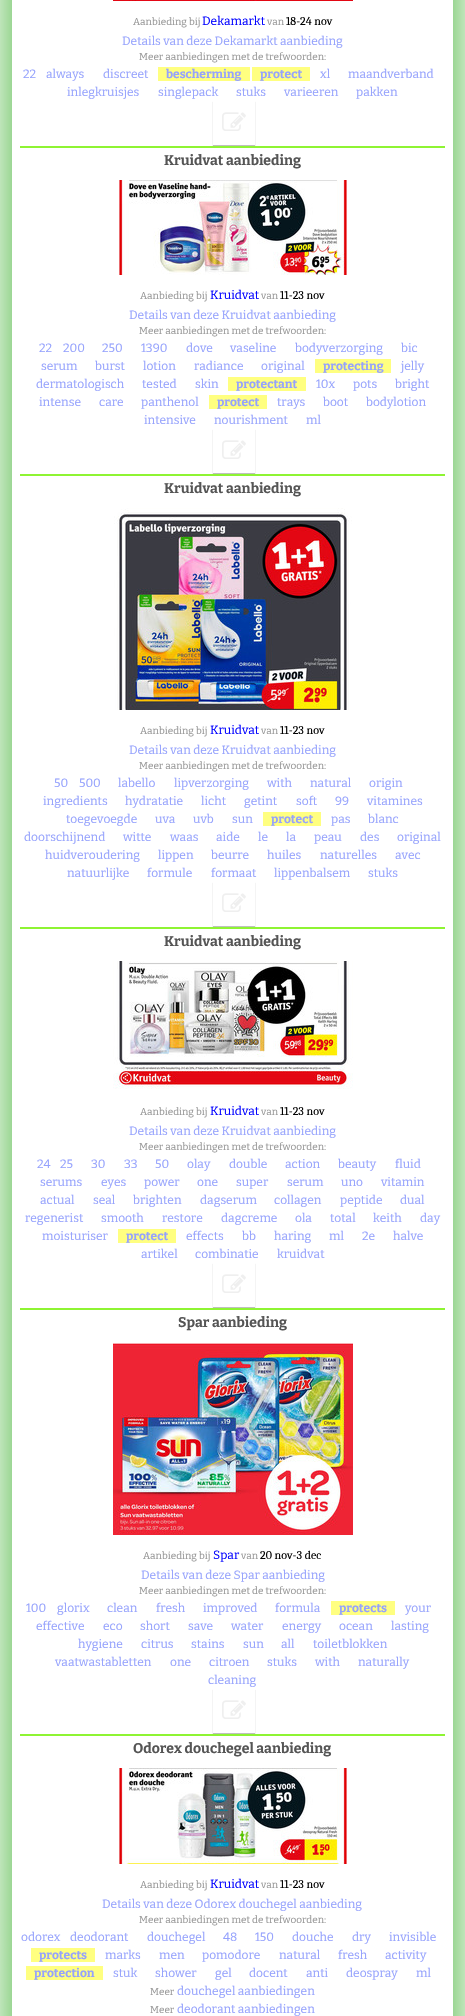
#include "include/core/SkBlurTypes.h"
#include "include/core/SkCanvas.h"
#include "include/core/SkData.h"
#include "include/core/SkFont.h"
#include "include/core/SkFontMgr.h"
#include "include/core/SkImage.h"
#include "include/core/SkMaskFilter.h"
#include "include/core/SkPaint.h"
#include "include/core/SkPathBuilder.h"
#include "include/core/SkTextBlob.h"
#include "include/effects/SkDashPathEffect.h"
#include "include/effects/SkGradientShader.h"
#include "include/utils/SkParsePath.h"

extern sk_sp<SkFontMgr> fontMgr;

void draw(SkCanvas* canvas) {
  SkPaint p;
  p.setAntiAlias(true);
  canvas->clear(SK_ColorWHITE);
  canvas->save();
  canvas->clipPath(SkPathBuilder(SkPathFillType::kEvenOdd).moveTo(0, 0).lineTo(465, 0).lineTo(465, 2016).lineTo(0, 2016).close().moveTo(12, -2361).lineTo(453, -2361).lineTo(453, 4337).lineTo(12, 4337).close().detach(), true);
  p.setColor(SkColorSetRGB(57, 175, 42));
  p.setMaskFilter(SkMaskFilter::MakeBlur(kNormal_SkBlurStyle, 25));
  canvas->drawRect(SkRect::MakeLTRB(12, -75, 453, 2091), p);
  p.setMaskFilter(nullptr);
  canvas->restore();
  canvas->drawImageRect(SkImages::DeferredFromEncodedData(SkData::MakeFromFileName("images/1.png")), SkRect::MakeLTRB(113, 0, 353, 1), SkSamplingOptions());
  p.setColor(SkColorSetRGB(255, 255, 128));
  canvas->drawRect(SkRect::MakeLTRB(158, 67, 250, 81), p);
  canvas->drawRect(SkRect::MakeLTRB(252, 67, 310, 81), p);
  canvas->save();
  canvas->clipPath(SkPathBuilder(SkPathFillType::kEvenOdd).moveTo(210, 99).lineTo(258, 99).lineTo(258, 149).lineTo(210, 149).close().moveTo(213, 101).lineTo(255, 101).lineTo(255, 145).lineTo(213, 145).close().detach(), true);
  p.setColor(SkColorSetARGB(64, 0, 0, 0));
  p.setMaskFilter(SkMaskFilter::MakeBlur(kNormal_SkBlurStyle, 0.5f));
  canvas->drawRect(SkRect::MakeLTRB(213, 102, 255, 146), p);
  p.setMaskFilter(nullptr);
  canvas->restore();
  canvas->drawImageRect(SkImages::DeferredFromEncodedData(SkData::MakeFromFileName("images/2.png")), SkRect::MakeLTRB(222, 112, 246, 131), SkSamplingOptions());
  p.setColor(SkColorSetRGB(142, 244, 51));
  canvas->drawRect(SkRect::MakeLTRB(20, 146, 445, 148), p);
  canvas->drawImageRect(SkImages::DeferredFromEncodedData(SkData::MakeFromFileName("images/3.png")), SkRect::MakeLTRB(119, 180, 347, 275), SkSamplingOptions());
  p.setColor(SkColorSetRGB(255, 255, 128));
  canvas->drawRect(SkRect::MakeLTRB(315, 359, 391, 373), p);
  canvas->drawRect(SkRect::MakeLTRB(228, 377, 306, 391), p);
  canvas->drawRect(SkRect::MakeLTRB(209, 395, 267, 409), p);
  canvas->save();
  canvas->clipPath(SkPathBuilder(SkPathFillType::kEvenOdd).moveTo(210, 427).lineTo(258, 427).lineTo(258, 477).lineTo(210, 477).close().moveTo(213, 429).lineTo(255, 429).lineTo(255, 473).lineTo(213, 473).close().detach(), true);
  p.setColor(SkColorSetARGB(64, 0, 0, 0));
  p.setMaskFilter(SkMaskFilter::MakeBlur(kNormal_SkBlurStyle, 0.5f));
  canvas->drawRect(SkRect::MakeLTRB(213, 430, 255, 474), p);
  p.setMaskFilter(nullptr);
  canvas->restore();
  canvas->drawImageRect(SkImages::DeferredFromEncodedData(SkData::MakeFromFileName("images/2.png")), SkRect::MakeLTRB(222, 440, 246, 459), SkSamplingOptions());
  p.setColor(SkColorSetRGB(142, 244, 51));
  canvas->drawRect(SkRect::MakeLTRB(20, 474, 445, 476), p);
  canvas->drawImageRect(SkImages::DeferredFromEncodedData(SkData::MakeFromFileName("images/4.png")), SkRect::MakeLTRB(114, 508, 352, 710), SkSamplingOptions());
  p.setColor(SkColorSetRGB(255, 255, 128));
  canvas->drawRect(SkRect::MakeLTRB(263, 812, 321, 826), p);
  canvas->save();
  canvas->clipPath(SkPathBuilder(SkPathFillType::kEvenOdd).moveTo(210, 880).lineTo(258, 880).lineTo(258, 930).lineTo(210, 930).close().moveTo(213, 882).lineTo(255, 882).lineTo(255, 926).lineTo(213, 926).close().detach(), true);
  p.setColor(SkColorSetARGB(64, 0, 0, 0));
  p.setMaskFilter(SkMaskFilter::MakeBlur(kNormal_SkBlurStyle, 0.5f));
  canvas->drawRect(SkRect::MakeLTRB(213, 883, 255, 927), p);
  p.setMaskFilter(nullptr);
  canvas->restore();
  canvas->drawImageRect(SkImages::DeferredFromEncodedData(SkData::MakeFromFileName("images/2.png")), SkRect::MakeLTRB(222, 893, 246, 912), SkSamplingOptions());
  p.setColor(SkColorSetRGB(142, 244, 51));
  canvas->drawRect(SkRect::MakeLTRB(20, 927, 445, 929), p);
  canvas->drawImageRect(SkImages::DeferredFromEncodedData(SkData::MakeFromFileName("images/5.png")), SkRect::MakeLTRB(113, 961, 353, 1089), SkSamplingOptions());
  p.setColor(SkColorSetRGB(255, 255, 128));
  canvas->drawRect(SkRect::MakeLTRB(118, 1229, 176, 1243), p);
  canvas->save();
  canvas->clipPath(SkPathBuilder(SkPathFillType::kEvenOdd).moveTo(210, 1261).lineTo(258, 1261).lineTo(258, 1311).lineTo(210, 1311).close().moveTo(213, 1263).lineTo(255, 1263).lineTo(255, 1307).lineTo(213, 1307).close().detach(), true);
  p.setColor(SkColorSetARGB(64, 0, 0, 0));
  p.setMaskFilter(SkMaskFilter::MakeBlur(kNormal_SkBlurStyle, 0.5f));
  canvas->drawRect(SkRect::MakeLTRB(213, 1264, 255, 1308), p);
  p.setMaskFilter(nullptr);
  canvas->restore();
  canvas->drawImageRect(SkImages::DeferredFromEncodedData(SkData::MakeFromFileName("images/2.png")), SkRect::MakeLTRB(222, 1274, 246, 1293), SkSamplingOptions());
  p.setColor(SkColorSetRGB(142, 244, 51));
  canvas->drawRect(SkRect::MakeLTRB(20, 1308, 445, 1310), p);
  canvas->drawImageRect(SkImages::DeferredFromEncodedData(SkData::MakeFromFileName("images/6.png")), SkRect::MakeLTRB(113, 1343, 353, 1535), SkSamplingOptions());
  p.setColor(SkColorSetRGB(255, 255, 128));
  canvas->drawRect(SkRect::MakeLTRB(331, 1601, 395, 1615), p);
  canvas->save();
  canvas->clipPath(SkPathBuilder(SkPathFillType::kEvenOdd).moveTo(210, 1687).lineTo(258, 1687).lineTo(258, 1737).lineTo(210, 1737).close().moveTo(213, 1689).lineTo(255, 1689).lineTo(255, 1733).lineTo(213, 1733).close().detach(), true);
  p.setColor(SkColorSetARGB(64, 0, 0, 0));
  p.setMaskFilter(SkMaskFilter::MakeBlur(kNormal_SkBlurStyle, 0.5f));
  canvas->drawRect(SkRect::MakeLTRB(213, 1690, 255, 1734), p);
  p.setMaskFilter(nullptr);
  canvas->restore();
  canvas->drawImageRect(SkImages::DeferredFromEncodedData(SkData::MakeFromFileName("images/2.png")), SkRect::MakeLTRB(222, 1700, 246, 1719), SkSamplingOptions());
  p.setColor(SkColorSetRGB(142, 244, 51));
  canvas->drawRect(SkRect::MakeLTRB(20, 1734, 445, 1736), p);
  canvas->drawImageRect(SkImages::DeferredFromEncodedData(SkData::MakeFromFileName("images/7.png")), SkRect::MakeLTRB(119, 1768, 347, 1864), SkSamplingOptions());
  p.setColor(SkColorSetRGB(255, 255, 128));
  canvas->drawRect(SkRect::MakeLTRB(31, 1948, 95, 1962), p);
  canvas->drawRect(SkRect::MakeLTRB(26, 1966, 103, 1980), p);
  SkFont font1(fontMgr->matchFamilyStyle("Bitter", SkFontStyle::Normal()), 10);
  font1.setSubpixel(true);
  p.setColor(SkColorSetRGB(150, 150, 150));
  canvas->drawString("Aanbieding bij", 133, 25, font1, p);
  SkFont font2(fontMgr->matchFamilyStyle("Bitter", SkFontStyle::Normal()), 12);
  font2.setSubpixel(true);
  p.setColor(SkColorSetRGB(0, 0, 255));
  canvas->drawString("Dekamarkt", 202, 25, font2, p);
  p.setColor(SkColorSetRGB(150, 150, 150));
  canvas->drawString("van", 267, 25, font1, p);
  SkFont font3(fontMgr->matchFamilyStyle("Caladea", SkFontStyle::Normal()), 12);
  font3.setSubpixel(true);
  p.setColor(SK_ColorBLACK);
  canvas->drawString("18-24 nov", 286, 25, font3, p);
  p.setColor(SkColorSetRGB(149, 162, 253));
  canvas->drawString("Details van deze Dekamarkt aanbieding", 122, 45, font2, p);
  p.setColor(SkColorSetRGB(150, 150, 150));
  canvas->drawString("Meer aanbiedingen met de trefwoorden:", 139, 60, font1, p);
  p.setColor(SkColorSetRGB(149, 162, 253));
  canvas->drawString("22", 23, 78, font2, p);
  canvas->drawString("always", 46, 78, font2, p);
  canvas->drawString("discreet", 103, 78, font2, p);
  SkFont font4(fontMgr->matchFamilyStyle("Bitter", SkFontStyle::Bold()), 12);
  font4.setSubpixel(true);
  canvas->drawString("bescherming", 166, 78, font4, p);
  canvas->drawString("protect", 260, 78, font4, p);
  canvas->drawString("xl", 320, 78, font2, p);
  canvas->drawString("maandverband", 348, 78, font2, p);
  canvas->drawString("inlegkruisjes", 67, 96, font2, p);
  canvas->drawString("singlepack", 158, 96, font2, p);
  canvas->drawString("stuks", 236, 96, font2, p);
  canvas->drawString("varieeren", 284, 96, font2, p);
  canvas->drawString("pakken", 356, 96, font2, p);
  SkFont font5(fontMgr->matchFamilyStyle("Bitter", SkFontStyle::Bold()), 14);
  font5.setSubpixel(true);
  p.setColor(SkColorSetRGB(85, 85, 85));
  canvas->drawString("Kruidvat aanbieding", 164, 165, font5, p);
  p.setColor(SkColorSetRGB(150, 150, 150));
  canvas->drawString("Aanbieding bij", 140, 299, font1, p);
  p.setColor(SkColorSetRGB(0, 0, 255));
  canvas->drawString("Kruidvat", 210, 299, font2, p);
  p.setColor(SkColorSetRGB(150, 150, 150));
  canvas->drawString("van", 261, 299, font1, p);
  p.setColor(SK_ColorBLACK);
  canvas->drawString("11-23 nov", 280, 299, font3, p);
  p.setColor(SkColorSetRGB(149, 162, 253));
  canvas->drawString("Details van deze Kruidvat aanbieding", 129, 319, font2, p);
  p.setColor(SkColorSetRGB(150, 150, 150));
  canvas->drawString("Meer aanbiedingen met de trefwoorden:", 139, 334, font1, p);
  p.setColor(SkColorSetRGB(149, 162, 253));
  canvas->drawString("22", 39, 352, font2, p);
  canvas->drawString("200", 63, 352, font2, p);
  canvas->drawString("250", 102, 352, font2, p);
  canvas->drawString("1390", 141, 352, font2, p);
  canvas->drawString("dove", 186, 352, font2, p);
  canvas->drawString("vaseline", 230, 352, font2, p);
  canvas->drawString("bodyverzorging", 295, 352, font2, p);
  canvas->drawString("bic", 401, 352, font2, p);
  canvas->drawString("serum", 41, 370, font2, p);
  canvas->drawString("burst", 95, 370, font2, p);
  canvas->drawString("lotion", 143, 370, font2, p);
  canvas->drawString("radiance", 194, 370, font2, p);
  canvas->drawString("original", 261, 370, font2, p);
  canvas->drawString("protecting", 323, 370, font4, p);
  canvas->drawString("jelly", 401, 370, font2, p);
  canvas->drawString("dermatologisch", 36, 388, font2, p);
  canvas->drawString("tested", 142, 388, font2, p);
  canvas->drawString("skin", 195, 388, font2, p);
  canvas->drawString("protectant", 236, 388, font4, p);
  canvas->drawString("10x", 316, 388, font2, p);
  canvas->drawString("pots", 353, 388, font2, p);
  canvas->drawString("bright", 395, 388, font2, p);
  canvas->drawString("intense", 39, 406, font2, p);
  canvas->drawString("care", 99, 406, font2, p);
  canvas->drawString("panthenol", 141, 406, font2, p);
  canvas->drawString("protect", 217, 406, font4, p);
  canvas->drawString("trays", 277, 406, font2, p);
  canvas->drawString("boot", 323, 406, font2, p);
  canvas->drawString("bodylotion", 366, 406, font2, p);
  canvas->drawString("intensive", 144, 424, font2, p);
  canvas->drawString("nourishment", 214, 424, font2, p);
  canvas->drawString("ml", 306, 424, font2, p);
  p.setColor(SkColorSetRGB(85, 85, 85));
  canvas->drawString("Kruidvat aanbieding", 164, 493, font5, p);
  p.setColor(SkColorSetRGB(150, 150, 150));
  canvas->drawString("Aanbieding bij", 140, 734, font1, p);
  p.setColor(SkColorSetRGB(0, 0, 255));
  canvas->drawString("Kruidvat", 210, 734, font2, p);
  p.setColor(SkColorSetRGB(150, 150, 150));
  canvas->drawString("van", 261, 734, font1, p);
  p.setColor(SK_ColorBLACK);
  canvas->drawString("11-23 nov", 280, 734, font3, p);
  p.setColor(SkColorSetRGB(149, 162, 253));
  canvas->drawString("Details van deze Kruidvat aanbieding", 129, 754, font2, p);
  p.setColor(SkColorSetRGB(150, 150, 150));
  canvas->drawString("Meer aanbiedingen met de trefwoorden:", 139, 769, font1, p);
  p.setColor(SkColorSetRGB(149, 162, 253));
  canvas->drawString("50", 54, 787, font2, p);
  canvas->drawString("500", 79, 787, font2, p);
  canvas->drawString("labello", 118, 787, font2, p);
  canvas->drawString("lipverzorging", 174, 787, font2, p);
  canvas->drawString("with", 267, 787, font2, p);
  canvas->drawString("natural", 310, 787, font2, p);
  canvas->drawString("origin", 369, 787, font2, p);
  canvas->drawString("ingredients", 43, 805, font2, p);
  canvas->drawString("hydratatie", 125, 805, font2, p);
  canvas->drawString("licht", 201, 805, font2, p);
  canvas->drawString("getint", 244, 805, font2, p);
  canvas->drawString("soft", 296, 805, font2, p);
  canvas->drawString("99", 335, 805, font2, p);
  canvas->drawString("vitamines", 367, 805, font2, p);
  canvas->drawString("toegevoegde", 66, 823, font2, p);
  canvas->drawString("uva", 155, 823, font2, p);
  canvas->drawString("uvb", 193, 823, font2, p);
  canvas->drawString("sun", 232, 823, font2, p);
  canvas->drawString("protect", 271, 823, font4, p);
  canvas->drawString("pas", 331, 823, font2, p);
  canvas->drawString("blanc", 368, 823, font2, p);
  canvas->drawString("doorschijnend", 24, 841, font2, p);
  canvas->drawString("witte", 123, 841, font2, p);
  canvas->drawString("waas", 170, 841, font2, p);
  canvas->drawString("aide", 216, 841, font2, p);
  canvas->drawString("le", 258, 841, font2, p);
  canvas->drawString("la", 286, 841, font2, p);
  canvas->drawString("peau", 314, 841, font2, p);
  canvas->drawString("des", 360, 841, font2, p);
  canvas->drawString("original", 397, 841, font2, p);
  canvas->drawString("huidveroudering", 45, 859, font2, p);
  canvas->drawString("lippen", 158, 859, font2, p);
  canvas->drawString("beurre", 211, 859, font2, p);
  canvas->drawString("huiles", 267, 859, font2, p);
  canvas->drawString("naturelles", 320, 859, font2, p);
  canvas->drawString("avec", 395, 859, font2, p);
  canvas->drawString("natuurlijke", 67, 877, font2, p);
  canvas->drawString("formule", 147, 877, font2, p);
  canvas->drawString("formaat", 211, 877, font2, p);
  canvas->drawString("lippenbalsem", 274, 877, font2, p);
  canvas->drawString("stuks", 368, 877, font2, p);
  p.setColor(SkColorSetRGB(85, 85, 85));
  canvas->drawString("Kruidvat aanbieding", 164, 946, font5, p);
  p.setColor(SkColorSetRGB(150, 150, 150));
  canvas->drawString("Aanbieding bij", 140, 1115, font1, p);
  p.setColor(SkColorSetRGB(0, 0, 255));
  canvas->drawString("Kruidvat", 210, 1115, font2, p);
  p.setColor(SkColorSetRGB(150, 150, 150));
  canvas->drawString("van", 261, 1115, font1, p);
  p.setColor(SK_ColorBLACK);
  canvas->drawString("11-23 nov", 280, 1115, font3, p);
  p.setColor(SkColorSetRGB(149, 162, 253));
  canvas->drawString("Details van deze Kruidvat aanbieding", 129, 1135, font2, p);
  p.setColor(SkColorSetRGB(150, 150, 150));
  canvas->drawString("Meer aanbiedingen met de trefwoorden:", 139, 1150, font1, p);
  p.setColor(SkColorSetRGB(149, 162, 253));
  canvas->drawString("24", 37, 1168, font2, p);
  canvas->drawString("25", 60, 1168, font2, p);
  canvas->drawString("30", 91, 1168, font2, p);
  canvas->drawString("33", 124, 1168, font2, p);
  canvas->drawString("50", 155, 1168, font2, p);
  canvas->drawString("olay", 187, 1168, font2, p);
  canvas->drawString("double", 229, 1168, font2, p);
  canvas->drawString("action", 285, 1168, font2, p);
  canvas->drawString("beauty", 338, 1168, font2, p);
  canvas->drawString("fluid", 395, 1168, font2, p);
  canvas->drawString("serums", 40, 1186, font2, p);
  canvas->drawString("eyes", 101, 1186, font2, p);
  canvas->drawString("power", 144, 1186, font2, p);
  canvas->drawString("one", 197, 1186, font2, p);
  canvas->drawString("super", 236, 1186, font2, p);
  canvas->drawString("serum", 287, 1186, font2, p);
  canvas->drawString("uno", 341, 1186, font2, p);
  canvas->drawString("vitamin", 381, 1186, font2, p);
  canvas->drawString("actual", 40, 1204, font2, p);
  canvas->drawString("seal", 93, 1204, font2, p);
  canvas->drawString("brighten", 133, 1204, font2, p);
  canvas->drawString("dagserum", 200, 1204, font2, p);
  canvas->drawString("collagen", 274, 1204, font2, p);
  canvas->drawString("peptide", 340, 1204, font2, p);
  canvas->drawString("dual", 400, 1204, font2, p);
  canvas->drawString("regenerist", 25, 1222, font2, p);
  canvas->drawString("smooth", 101, 1222, font2, p);
  canvas->drawString("restore", 162, 1222, font2, p);
  canvas->drawString("dagcreme", 221, 1222, font2, p);
  canvas->drawString("ola", 295, 1222, font2, p);
  canvas->drawString("total", 330, 1222, font2, p);
  canvas->drawString("keith", 373, 1222, font2, p);
  canvas->drawString("day", 420, 1222, font2, p);
  canvas->drawString("moisturiser", 42, 1240, font2, p);
  canvas->drawString("protect", 126, 1240, font4, p);
  canvas->drawString("effects", 186, 1240, font2, p);
  canvas->drawString("bb", 242, 1240, font2, p);
  canvas->drawString("haring", 274, 1240, font2, p);
  canvas->drawString("ml", 329, 1240, font2, p);
  canvas->drawString("2e", 362, 1240, font2, p);
  canvas->drawString("halve", 393, 1240, font2, p);
  canvas->drawString("artikel", 141, 1258, font2, p);
  canvas->drawString("combinatie", 195, 1258, font2, p);
  canvas->drawString("kruidvat", 277, 1258, font2, p);
  p.setColor(SkColorSetRGB(85, 85, 85));
  canvas->drawString("Spar aanbieding", 178, 1327, font5, p);
  p.setColor(SkColorSetRGB(150, 150, 150));
  canvas->drawString("Aanbieding bij", 143, 1559, font1, p);
  p.setColor(SkColorSetRGB(0, 0, 255));
  canvas->drawString("Spar", 213, 1559, font2, p);
  p.setColor(SkColorSetRGB(150, 150, 150));
  canvas->drawString("van", 241, 1559, font1, p);
  p.setColor(SK_ColorBLACK);
  canvas->drawString("20 nov-3 dec", 260, 1559, font3, p);
  p.setColor(SkColorSetRGB(149, 162, 253));
  canvas->drawString("Details van deze Spar aanbieding", 141, 1579, font2, p);
  p.setColor(SkColorSetRGB(150, 150, 150));
  canvas->drawString("Meer aanbiedingen met de trefwoorden:", 139, 1594, font1, p);
  p.setColor(SkColorSetRGB(149, 162, 253));
  canvas->drawString("100", 26, 1612, font2, p);
  canvas->drawString("glorix", 57, 1612, font2, p);
  canvas->drawString("clean", 107, 1612, font2, p);
  canvas->drawString("fresh", 156, 1612, font2, p);
  canvas->drawString("improved", 203, 1612, font2, p);
  canvas->drawString("formula", 275, 1612, font2, p);
  canvas->drawString("protects", 339, 1612, font4, p);
  canvas->drawString("your", 405, 1612, font2, p);
  canvas->drawString("effective", 36, 1630, font2, p);
  canvas->drawString("eco", 103, 1630, font2, p);
  canvas->drawString("short", 140, 1630, font2, p);
  canvas->drawString("save", 188, 1630, font2, p);
  canvas->drawString("water", 231, 1630, font2, p);
  canvas->drawString("energy", 282, 1630, font2, p);
  canvas->drawString("ocean", 339, 1630, font2, p);
  canvas->drawString("lasting", 391, 1630, font2, p);
  canvas->drawString("hygiene", 78, 1648, font2, p);
  canvas->drawString("citrus", 141, 1648, font2, p);
  canvas->drawString("stains", 191, 1648, font2, p);
  canvas->drawString("sun", 243, 1648, font2, p);
  canvas->drawString("all", 281, 1648, font2, p);
  canvas->drawString("toiletblokken", 313, 1648, font2, p);
  canvas->drawString("vaatwastabletten", 55, 1666, font2, p);
  canvas->drawString("one", 170, 1666, font2, p);
  canvas->drawString("citroen", 209, 1666, font2, p);
  canvas->drawString("stuks", 267, 1666, font2, p);
  canvas->drawString("with", 315, 1666, font2, p);
  canvas->drawString("naturally", 358, 1666, font2, p);
  canvas->drawString("cleaning", 208, 1684, font2, p);
  p.setColor(SkColorSetRGB(85, 85, 85));
  canvas->drawString("Odorex douchegel aanbieding", 133, 1753, font5, p);
  p.setColor(SkColorSetRGB(150, 150, 150));
  canvas->drawString("Aanbieding bij", 140, 1888, font1, p);
  p.setColor(SkColorSetRGB(0, 0, 255));
  canvas->drawString("Kruidvat", 210, 1888, font2, p);
  p.setColor(SkColorSetRGB(150, 150, 150));
  canvas->drawString("van", 261, 1888, font1, p);
  p.setColor(SK_ColorBLACK);
  canvas->drawString("11-23 nov", 280, 1888, font3, p);
  p.setColor(SkColorSetRGB(149, 162, 253));
  canvas->drawString("Details van deze Odorex douchegel aanbieding", 102, 1908, font2, p);
  p.setColor(SkColorSetRGB(150, 150, 150));
  canvas->drawString("Meer aanbiedingen met de trefwoorden:", 139, 1923, font1, p);
  p.setColor(SkColorSetRGB(149, 162, 253));
  canvas->drawString("odorex", 21, 1941, font2, p);
  canvas->drawString("deodorant", 70, 1941, font2, p);
  canvas->drawString("douchegel", 147, 1941, font2, p);
  canvas->drawString("48", 223, 1941, font2, p);
  canvas->drawString("150", 255, 1941, font2, p);
  canvas->drawString("douche", 292, 1941, font2, p);
  canvas->drawString("dry", 352, 1941, font2, p);
  canvas->drawString("invisible", 389, 1941, font2, p);
  canvas->drawString("protects", 39, 1959, font4, p);
  canvas->drawString("marks", 105, 1959, font2, p);
  canvas->drawString("men", 159, 1959, font2, p);
  canvas->drawString("pomodore", 202, 1959, font2, p);
  canvas->drawString("natural", 279, 1959, font2, p);
  canvas->drawString("fresh", 338, 1959, font2, p);
  canvas->drawString("activity", 385, 1959, font2, p);
  canvas->drawString("protection", 34, 1977, font4, p);
  canvas->drawString("stuk", 113, 1977, font2, p);
  canvas->drawString("shower", 155, 1977, font2, p);
  canvas->drawString("gel", 215, 1977, font2, p);
  canvas->drawString("docent", 249, 1977, font2, p);
  canvas->drawString("anti", 306, 1977, font2, p);
  canvas->drawString("deospray", 346, 1977, font2, p);
  canvas->drawString("ml", 416, 1977, font2, p);
  p.setColor(SkColorSetRGB(150, 150, 150));
  canvas->drawString("Meer", 150, 1995, font1, p);
  p.setColor(SkColorSetRGB(149, 162, 253));
  canvas->drawString("douchegel aanbiedingen", 177, 1995, font2, p);
  p.setColor(SkColorSetRGB(150, 150, 150));
  canvas->drawString("Meer", 150, 2013, font1, p);
  p.setColor(SkColorSetRGB(149, 162, 253));
  canvas->drawString("deodorant aanbiedingen", 177, 2013, font2, p);
}
